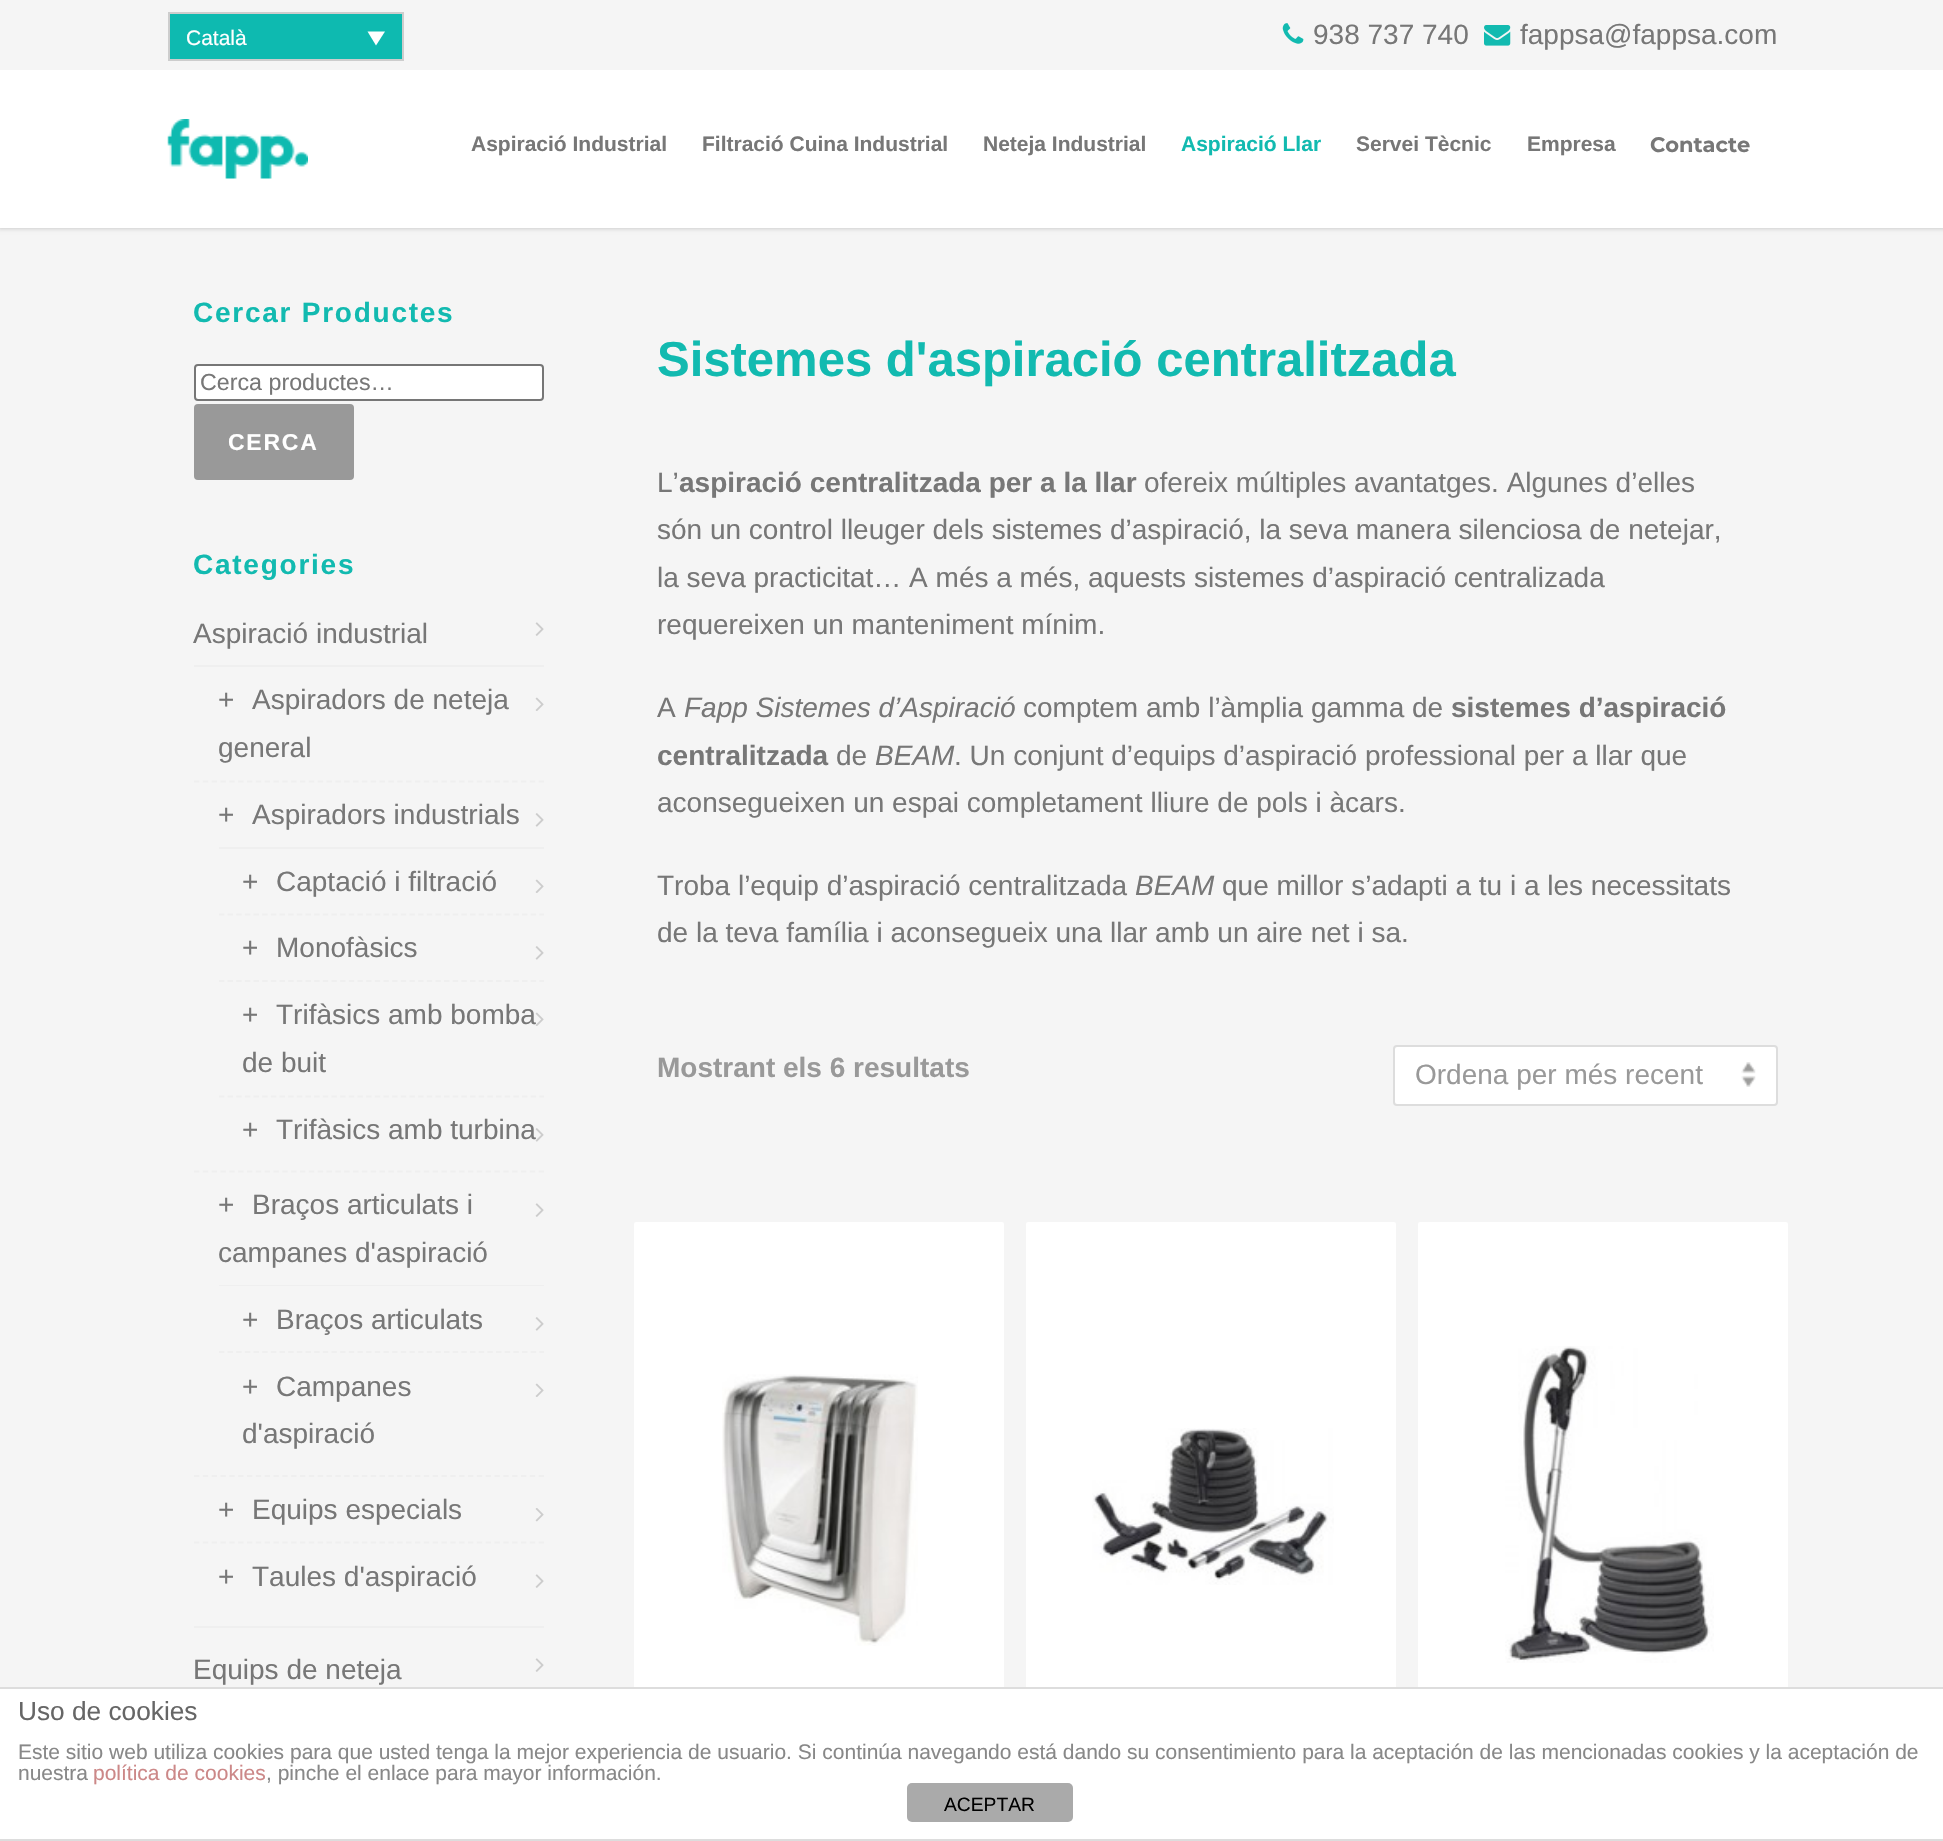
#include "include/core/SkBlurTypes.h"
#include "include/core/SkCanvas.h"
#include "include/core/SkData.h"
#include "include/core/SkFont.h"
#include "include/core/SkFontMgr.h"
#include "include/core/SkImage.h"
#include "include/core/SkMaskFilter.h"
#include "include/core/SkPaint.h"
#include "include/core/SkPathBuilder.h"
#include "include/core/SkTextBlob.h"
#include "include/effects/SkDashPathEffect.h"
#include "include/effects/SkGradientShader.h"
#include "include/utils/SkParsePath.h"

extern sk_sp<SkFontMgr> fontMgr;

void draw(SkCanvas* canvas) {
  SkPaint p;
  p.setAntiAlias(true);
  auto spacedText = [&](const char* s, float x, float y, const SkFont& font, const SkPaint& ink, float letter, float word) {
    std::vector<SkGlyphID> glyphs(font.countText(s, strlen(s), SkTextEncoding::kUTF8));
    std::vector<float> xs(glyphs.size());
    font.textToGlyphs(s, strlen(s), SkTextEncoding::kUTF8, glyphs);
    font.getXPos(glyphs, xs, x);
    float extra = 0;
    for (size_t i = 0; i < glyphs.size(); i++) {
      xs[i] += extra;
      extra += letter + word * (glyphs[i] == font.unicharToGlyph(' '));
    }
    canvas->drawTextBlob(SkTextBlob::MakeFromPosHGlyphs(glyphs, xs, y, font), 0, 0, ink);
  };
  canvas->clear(SkColorSetRGB(245, 245, 245));
  p.setColor(SkColorSetARGB(41, 0, 0, 0));
  p.setMaskFilter(SkMaskFilter::MakeBlur(kNormal_SkBlurStyle, 2));
  canvas->drawRect(SkRect::MakeLTRB(-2, -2, 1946, 229), p);
  p.setMaskFilter(nullptr);
  p.setColor(SK_ColorWHITE);
  canvas->drawRect(SkRect::MakeLTRB(0, 70, 1943, 228), p);
  p.setColor(SkColorSetRGB(245, 245, 245));
  canvas->drawRect(SkRect::MakeLTRB(0, 0, 1943, 70), p);
  p.setColor(SkColorSetRGB(14, 186, 176));
  canvas->drawRect(SkRect::MakeLTRB(169, 13, 403, 60), p);
  p.setStyle(SkPaint::kStroke_Style);
  p.setStrokeWidth(2);
  p.setColor(SkColorSetRGB(205, 205, 205));
  canvas->drawRect(SkRect::MakeLTRB(169, 13, 403, 60), p);
  p.setStyle(SkPaint::kFill_Style);
  p.setColor(SK_ColorWHITE);
  canvas->drawPath(SkPathBuilder().moveTo(367.5f, 31.5f).lineTo(385, 31.5f).lineTo(376, 45.5f).close().detach(), p);
  canvas->drawImageRect(SkImages::DeferredFromEncodedData(SkData::MakeFromFileName("images/1.png")), SkRect::MakeLTRB(1282, 23, 1304, 44), SkSamplingOptions());
  canvas->drawImageRect(SkImages::DeferredFromEncodedData(SkData::MakeFromFileName("images/2.png")), SkRect::MakeLTRB(1484, 25, 1511, 46), SkSamplingOptions());
  canvas->drawImageRect(SkImages::DeferredFromEncodedData(SkData::MakeFromFileName("images/3.png")), SkRect::MakeLTRB(167, 119, 308, 179), SkSamplingOptions());
  canvas->drawRoundRect(SkRect::MakeLTRB(195, 365, 543, 400), 3, 3, p);
  p.setStyle(SkPaint::kStroke_Style);
  p.setColor(SkColorSetRGB(118, 118, 118));
  canvas->drawRoundRect(SkRect::MakeLTRB(195, 365, 543, 400), 3, 3, p);
  p.setStyle(SkPaint::kFill_Style);
  p.setColor(SkColorSetRGB(153, 153, 153));
  canvas->drawRoundRect(SkRect::MakeLTRB(194, 404, 354, 480), 4, 4, p);
  p.setColor(SkColorSetRGB(239, 239, 239));
  canvas->drawRect(SkRect::MakeLTRB(194, 1626, 544, 1628), p);
  canvas->drawImageRect(SkImages::DeferredFromEncodedData(SkData::MakeFromFileName("images/4.png")), SkRect::MakeLTRB(535, 622, 544, 636), SkSamplingOptions());
  canvas->drawRect(SkRect::MakeLTRB(194, 665, 544, 667), p);
  p.setStyle(SkPaint::kStroke_Style);
  p.setStrokeWidth(1.8f);
  p.setPathEffect(SkDashPathEffect::Make({{5.25f, 3.59f}}, 0));
  canvas->drawPath(SkPathBuilder().moveTo(194, 781.5f).lineTo(544, 781.5f).detach(), p);
  p.setPathEffect(nullptr);
  canvas->drawImageRect(SkImages::DeferredFromEncodedData(SkData::MakeFromFileName("images/5.png")), SkRect::MakeLTRB(535, 697, 544, 711), SkSamplingOptions());
  p.setPathEffect(SkDashPathEffect::Make({{5.25f, 3.59f}}, 0));
  canvas->drawPath(SkPathBuilder().moveTo(194, 1171.5f).lineTo(544, 1171.5f).detach(), p);
  p.setPathEffect(nullptr);
  canvas->drawImageRect(SkImages::DeferredFromEncodedData(SkData::MakeFromFileName("images/6.png")), SkRect::MakeLTRB(535, 813, 544, 827), SkSamplingOptions());
  p.setStyle(SkPaint::kFill_Style);
  canvas->drawRect(SkRect::MakeLTRB(219, 847, 544, 849), p);
  p.setStyle(SkPaint::kStroke_Style);
  p.setPathEffect(SkDashPathEffect::Make({{5.25f, 3.41f}}, 0));
  canvas->drawPath(SkPathBuilder().moveTo(219, 914.5f).lineTo(544, 914.5f).detach(), p);
  p.setPathEffect(nullptr);
  canvas->drawImageRect(SkImages::DeferredFromEncodedData(SkData::MakeFromFileName("images/5.png")), SkRect::MakeLTRB(535, 879, 544, 893), SkSamplingOptions());
  p.setPathEffect(SkDashPathEffect::Make({{5.25f, 3.41f}}, 0));
  canvas->drawPath(SkPathBuilder().moveTo(219, 981).lineTo(544, 981).detach(), p);
  p.setPathEffect(nullptr);
  canvas->drawImageRect(SkImages::DeferredFromEncodedData(SkData::MakeFromFileName("images/6.png")), SkRect::MakeLTRB(535, 946, 544, 960), SkSamplingOptions());
  p.setPathEffect(SkDashPathEffect::Make({{5.25f, 3.41f}}, 0));
  canvas->drawPath(SkPathBuilder().moveTo(219, 1096.5f).lineTo(544, 1096.5f).detach(), p);
  p.setPathEffect(nullptr);
  p.setPathEffect(SkDashPathEffect::Make({{5.25f, 3.59f}}, 0));
  canvas->drawPath(SkPathBuilder().moveTo(194, 1476).lineTo(544, 1476).detach(), p);
  p.setPathEffect(nullptr);
  canvas->drawImageRect(SkImages::DeferredFromEncodedData(SkData::MakeFromFileName("images/4.png")), SkRect::MakeLTRB(535, 1203, 544, 1217), SkSamplingOptions());
  p.setStyle(SkPaint::kFill_Style);
  canvas->drawRect(SkRect::MakeLTRB(219, 1285, 544, 1286), p);
  p.setStyle(SkPaint::kStroke_Style);
  p.setPathEffect(SkDashPathEffect::Make({{5.25f, 3.41f}}, 0));
  canvas->drawPath(SkPathBuilder().moveTo(219, 1352).lineTo(544, 1352).detach(), p);
  p.setPathEffect(nullptr);
  canvas->drawImageRect(SkImages::DeferredFromEncodedData(SkData::MakeFromFileName("images/6.png")), SkRect::MakeLTRB(535, 1317, 544, 1331), SkSamplingOptions());
  canvas->drawImageRect(SkImages::DeferredFromEncodedData(SkData::MakeFromFileName("images/5.png")), SkRect::MakeLTRB(535, 1383, 544, 1397), SkSamplingOptions());
  p.setPathEffect(SkDashPathEffect::Make({{5.25f, 3.59f}}, 0));
  canvas->drawPath(SkPathBuilder().moveTo(194, 1542.5f).lineTo(544, 1542.5f).detach(), p);
  p.setPathEffect(nullptr);
  canvas->drawImageRect(SkImages::DeferredFromEncodedData(SkData::MakeFromFileName("images/9.png")), SkRect::MakeLTRB(535, 1508, 544, 1522), SkSamplingOptions());
  canvas->drawImageRect(SkImages::DeferredFromEncodedData(SkData::MakeFromFileName("images/4.png")), SkRect::MakeLTRB(535, 1574, 544, 1588), SkSamplingOptions());
  canvas->drawImageRect(SkImages::DeferredFromEncodedData(SkData::MakeFromFileName("images/4.png")), SkRect::MakeLTRB(535, 1658, 544, 1672), SkSamplingOptions());
  p.setStyle(SkPaint::kFill_Style);
  p.setColor(SK_ColorWHITE);
  canvas->drawRoundRect(SkRect::MakeLTRB(1394, 1046, 1777, 1105), 3, 3, p);
  p.setStyle(SkPaint::kStroke_Style);
  p.setStrokeWidth(2);
  p.setColor(SkColorSetRGB(221, 221, 221));
  canvas->drawRoundRect(SkRect::MakeLTRB(1394, 1046, 1777, 1105), 3, 3, p);
  canvas->drawImageRect(SkImages::DeferredFromEncodedData(SkData::MakeFromFileName("images/10.png")), SkRect::MakeLTRB(1741, 1062, 1756, 1087), SkSamplingOptions());
  p.setStyle(SkPaint::kFill_Style);
  p.setColor(SK_ColorWHITE);
  canvas->drawRoundRect(SkRect::MakeLTRB(633, 1221, 1005, 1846), 3, 3, p);
  p.setStyle(SkPaint::kStroke_Style);
  p.setColor(SkColorSetRGB(245, 245, 245));
  canvas->drawRoundRect(SkRect::MakeLTRB(633, 1221, 1005, 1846), 3, 3, p);
  canvas->drawImageRect(SkImages::DeferredFromEncodedData(SkData::MakeFromFileName("images/11.png")), SkRect::MakeLTRB(722, 1374, 918, 1646), SkSamplingOptions());
  p.setStyle(SkPaint::kFill_Style);
  p.setColor(SK_ColorWHITE);
  canvas->drawRoundRect(SkRect::MakeLTRB(1025, 1221, 1397, 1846), 3, 3, p);
  p.setStyle(SkPaint::kStroke_Style);
  p.setColor(SkColorSetRGB(245, 245, 245));
  canvas->drawRoundRect(SkRect::MakeLTRB(1025, 1221, 1397, 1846), 3, 3, p);
  canvas->drawImageRect(SkImages::DeferredFromEncodedData(SkData::MakeFromFileName("images/12.png")), SkRect::MakeLTRB(1092, 1428, 1334, 1585), SkSamplingOptions());
  p.setStyle(SkPaint::kFill_Style);
  p.setColor(SK_ColorWHITE);
  canvas->drawRoundRect(SkRect::MakeLTRB(1417, 1221, 1789, 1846), 3, 3, p);
  p.setStyle(SkPaint::kStroke_Style);
  p.setColor(SkColorSetRGB(245, 245, 245));
  canvas->drawRoundRect(SkRect::MakeLTRB(1417, 1221, 1789, 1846), 3, 3, p);
  canvas->drawImageRect(SkImages::DeferredFromEncodedData(SkData::MakeFromFileName("images/13.png")), SkRect::MakeLTRB(1505, 1346, 1714, 1663), SkSamplingOptions());
  p.setStyle(SkPaint::kFill_Style);
  p.setColor(SK_ColorWHITE);
  canvas->drawRect(SkRect::MakeLTRB(0, 1689, 1943, 1839), p);
  p.setColor(SkColorSetRGB(221, 221, 221));
  canvas->drawRect(SkRect::MakeLTRB(0, 1687, 1943, 1689), p);
  canvas->drawRect(SkRect::MakeLTRB(0, 1839, 1943, 1841), p);
  p.setColor(SkColorSetRGB(170, 170, 170));
  canvas->drawRoundRect(SkRect::MakeLTRB(907, 1783, 1073, 1822), 5, 5, p);
  SkFont font1(fontMgr->matchFamilyStyle("Liberation Sans", SkFontStyle::Normal()), 21);
  font1.setSubpixel(true);
  p.setColor(SK_ColorWHITE);
  canvas->drawString("Català", 186, 45, font1, p);
  SkFont font2(fontMgr->matchFamilyStyle("Liberation Sans", SkFontStyle::Normal()), 28);
  font2.setSubpixel(true);
  p.setColor(SkColorSetRGB(119, 119, 119));
  canvas->drawString("938 737 740", 1313, 44, font2, p);
  canvas->drawString("fappsa@fappsa.com", 1520, 44, font2, p);
  SkFont font3(fontMgr->matchFamilyStyle("Liberation Sans", SkFontStyle::Bold()), 21);
  font3.setSubpixel(true);
  canvas->drawString("Aspiració Industrial", 471, 151, font3, p);
  canvas->drawString("Filtració Cuina Industrial", 702, 151, font3, p);
  canvas->drawString("Neteja Industrial", 983, 151, font3, p);
  p.setColor(SkColorSetRGB(18, 186, 176));
  canvas->drawString("Aspiració Llar", 1181, 151, font3, p);
  p.setColor(SkColorSetRGB(119, 119, 119));
  canvas->drawString("Servei Tècnic", 1356, 151, font3, p);
  canvas->drawString("Empresa", 1527, 151, font3, p);
  SkFont font4(fontMgr->matchFamilyStyle("Montserrat", SkFontStyle::Bold()), 21);
  font4.setSubpixel(true);
  canvas->drawString("Contacte", 1650, 152, font4, p);
  SkFont font5(fontMgr->matchFamilyStyle("Liberation Sans", SkFontStyle::Bold()), 28);
  font5.setSubpixel(true);
  p.setColor(SkColorSetRGB(18, 186, 176));
  spacedText("Cercar Productes", 193, 322, font5, p, 1.75f, 0);
  SkFont font6(fontMgr->matchFamilyStyle("Liberation Sans", SkFontStyle::Normal()), 23.25f);
  font6.setSubpixel(true);
  p.setColor(SkColorSetRGB(119, 119, 119));
  canvas->drawString("Cerca productes…", 200, 390, font6, p);
  SkFont font7(fontMgr->matchFamilyStyle("Liberation Sans", SkFontStyle::Bold()), 23);
  font7.setSubpixel(true);
  p.setColor(SK_ColorWHITE);
  spacedText("CERCA", 228, 450, font7, p, 1.75f, 0);
  p.setColor(SkColorSetRGB(18, 186, 176));
  spacedText("Categories", 193, 574, font5, p, 1.75f, 0);
  p.setColor(SkColorSetRGB(119, 119, 119));
  canvas->drawString("Aspiració industrial", 193, 643, font2, p);
  canvas->drawString("+", 218, 709, font2, p);
  canvas->drawString("Aspiradors de neteja", 252, 709, font2, p);
  canvas->drawString("general", 218, 757, font2, p);
  canvas->drawString("+", 218, 824, font2, p);
  canvas->drawString("Aspiradors industrials", 252, 824, font2, p);
  canvas->drawString("+", 242, 891, font2, p);
  canvas->drawString("Captació i filtració", 276, 891, font2, p);
  canvas->drawString("+", 242, 957, font2, p);
  canvas->drawString("Monofàsics", 276, 957, font2, p);
  canvas->drawString("+", 242, 1024, font2, p);
  canvas->drawString("Trifàsics amb bomba", 276, 1024, font2, p);
  canvas->drawString("de buit", 242, 1072, font2, p);
  canvas->drawImageRect(SkImages::DeferredFromEncodedData(SkData::MakeFromFileName("images/7.png")), SkRect::MakeLTRB(535, 1012, 544, 1026), SkSamplingOptions());
  canvas->drawString("+", 242, 1139, font2, p);
  canvas->drawString("Trifàsics amb turbina", 276, 1139, font2, p);
  canvas->drawImageRect(SkImages::DeferredFromEncodedData(SkData::MakeFromFileName("images/8.png")), SkRect::MakeLTRB(535, 1128, 544, 1142), SkSamplingOptions());
  canvas->drawString("+", 218, 1214, font2, p);
  canvas->drawString("Braços articulats i", 252, 1214, font2, p);
  canvas->drawString("campanes d'aspiració", 218, 1262, font2, p);
  canvas->drawString("+", 242, 1329, font2, p);
  canvas->drawString("Braços articulats", 276, 1329, font2, p);
  canvas->drawString("+", 242, 1396, font2, p);
  canvas->drawString("Campanes", 276, 1396, font2, p);
  canvas->drawString("d'aspiració", 242, 1443, font2, p);
  canvas->drawString("+", 218, 1519, font2, p);
  canvas->drawString("Equips especials", 252, 1519, font2, p);
  canvas->drawString("+", 218, 1586, font2, p);
  canvas->drawString("Taules d'aspiració", 252, 1586, font2, p);
  canvas->drawString("Equips de neteja", 193, 1679, font2, p);
  SkFont font8(fontMgr->matchFamilyStyle("Liberation Sans", SkFontStyle::Bold()), 49);
  font8.setSubpixel(true);
  p.setColor(SkColorSetRGB(18, 186, 176));
  canvas->drawString("Sistemes d'aspiració centralitzada", 657, 376, font8, p);
  p.setColor(SkColorSetRGB(119, 119, 119));
  canvas->drawString("L’", 657, 492, font2, p);
  canvas->drawString("aspiració centralitzada per a la llar", 679, 492, font5, p);
  canvas->drawString("ofereix múltiples avantatges. Algunes d’elles", 1144, 492, font2, p);
  canvas->drawString("són un control lleuger dels sistemes d’aspiració, la seva manera silenciosa de netejar,", 657, 539, font2, p);
  canvas->drawString("la seva practicitat… A més a més, aquests sistemes d’aspiració centralizada", 657, 587, font2, p);
  canvas->drawString("requereixen un manteniment mínim.", 657, 634, font2, p);
  canvas->drawString("A", 657, 717, font2, p);
  SkFont font9(fontMgr->matchFamilyStyle("Liberation Sans", SkFontStyle::Italic()), 28);
  font9.setSubpixel(true);
  canvas->drawString("Fapp Sistemes d’Aspiració", 684, 717, font9, p);
  canvas->drawString("comptem amb l’àmplia gamma de", 1023, 717, font2, p);
  canvas->drawString("sistemes d’aspiració", 1451, 717, font5, p);
  canvas->drawString("centralitzada", 657, 765, font5, p);
  canvas->drawString("de", 836, 765, font2, p);
  canvas->drawString("BEAM", 875, 765, font9, p);
  canvas->drawString(". Un conjunt d’equips d’aspiració professional per a llar que", 954, 765, font2, p);
  canvas->drawString("aconsegueixen un espai completament lliure de pols i àcars.", 657, 812, font2, p);
  canvas->drawString("Troba l’equip d’aspiració centralitzada", 657, 895, font2, p);
  canvas->drawString("BEAM", 1135, 895, font9, p);
  canvas->drawString("que millor s’adapti a tu i a les necessitats", 1222, 895, font2, p);
  canvas->drawString("de la teva família i aconsegueix una llar amb un aire net i sa.", 657, 942, font2, p);
  p.setColor(SkColorSetRGB(153, 153, 153));
  canvas->drawString("Mostrant els 6 resultats", 657, 1077, font5, p);
  canvas->drawString("Ordena per més recent", 1415, 1084, font2, p);
  SkFont font10(fontMgr->matchFamilyStyle("Liberation Sans", SkFontStyle::Normal()), 26.25f);
  font10.setSubpixel(true);
  p.setColor(SkColorSetRGB(102, 102, 102));
  canvas->drawString("Uso de cookies", 18, 1720, font10, p);
  p.setColor(SkColorSetRGB(136, 136, 136));
  canvas->drawString("Este sitio web utiliza cookies para que usted tenga la mejor experiencia de usuario. Si continúa navegando está dando su consentimiento para la aceptación de las mencionadas cookies y la aceptación de", 18, 1759, font1, p);
  canvas->drawString("nuestra", 18, 1780, font1, p);
  p.setColor(SkColorSetRGB(204, 136, 136));
  canvas->drawString("política de cookies", 93, 1780, font1, p);
  p.setColor(SkColorSetRGB(136, 136, 136));
  canvas->drawString(", pinche el enlace para mayor información.", 266, 1780, font1, p);
  SkFont font11(fontMgr->matchFamilyStyle("Liberation Sans", SkFontStyle::Normal()), 19.25f);
  font11.setSubpixel(true);
  p.setColor(SK_ColorBLACK);
  canvas->drawString("ACEPTAR", 944, 1811, font11, p);
}
